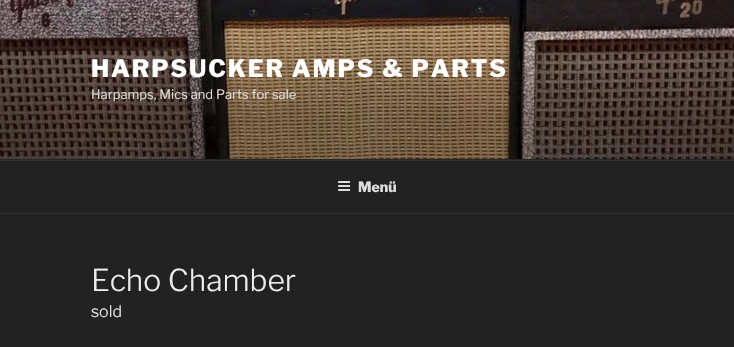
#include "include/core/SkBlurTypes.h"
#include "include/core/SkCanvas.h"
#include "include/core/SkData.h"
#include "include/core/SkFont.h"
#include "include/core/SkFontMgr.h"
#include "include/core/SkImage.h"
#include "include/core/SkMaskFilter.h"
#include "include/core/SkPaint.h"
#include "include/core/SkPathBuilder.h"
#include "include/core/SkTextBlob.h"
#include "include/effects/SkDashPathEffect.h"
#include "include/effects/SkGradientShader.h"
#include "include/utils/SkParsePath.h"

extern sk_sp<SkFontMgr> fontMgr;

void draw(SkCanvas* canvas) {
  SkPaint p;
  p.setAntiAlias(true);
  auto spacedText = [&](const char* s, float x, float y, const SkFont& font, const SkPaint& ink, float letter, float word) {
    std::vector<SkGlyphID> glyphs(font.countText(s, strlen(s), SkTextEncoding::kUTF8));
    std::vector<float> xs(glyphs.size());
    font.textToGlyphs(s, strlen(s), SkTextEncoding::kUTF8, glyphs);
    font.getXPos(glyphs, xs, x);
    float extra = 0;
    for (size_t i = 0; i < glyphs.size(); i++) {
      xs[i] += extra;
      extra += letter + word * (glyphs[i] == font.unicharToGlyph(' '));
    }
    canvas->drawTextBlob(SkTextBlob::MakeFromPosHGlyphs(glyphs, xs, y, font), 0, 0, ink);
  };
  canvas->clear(SkColorSetRGB(34, 34, 34));
  p.setColor(SkColorSetRGB(38, 38, 38));
  canvas->drawRect(SkRect::MakeLTRB(0, 159, 734, 160), p);
  canvas->drawImageRect(SkImages::DeferredFromEncodedData(SkData::MakeFromFileName("images/1.png")), SkRect::MakeLTRB(0, 0, 734, 159), SkSamplingOptions());
  p.setColor(SkColorSetRGB(51, 51, 51));
  canvas->drawRect(SkRect::MakeLTRB(0, 160, 734, 161), p);
  canvas->drawRect(SkRect::MakeLTRB(0, 213, 734, 214), p);
  canvas->drawImageRect(SkImages::DeferredFromEncodedData(SkData::MakeFromFileName("images/2.png")), SkRect::MakeLTRB(338, 181, 351, 191), SkSamplingOptions());
  SkFont font1(fontMgr->matchFamilyStyle("Libre Franklin", SkFontStyle(800, SkFontStyle::kNormal_Width, SkFontStyle::kUpright_Slant)), 24);
  font1.setSubpixel(true);
  p.setColor(SK_ColorWHITE);
  spacedText("HARPSUCKER AMPS & PARTS", 91, 77, font1, p, 1.9f, 0);
  SkFont font2(fontMgr->matchFamilyStyle("Libre Franklin", SkFontStyle::Normal()), 13);
  font2.setSubpixel(true);
  p.setColor(SkColorSetRGB(221, 217, 215));
  canvas->drawString("Harpamps, Mics and Parts for sale", 91, 99, font2, p);
  SkFont font3(fontMgr->matchFamilyStyle("Libre Franklin", SkFontStyle(800, SkFontStyle::kNormal_Width, SkFontStyle::kUpright_Slant)), 14);
  font3.setSubpixel(true);
  p.setColor(SkColorSetRGB(221, 221, 221));
  canvas->drawString("Menü", 358, 192, font3, p);
  SkFont font4(fontMgr->matchFamilyStyle("Libre Franklin", SkFontStyle(300, SkFontStyle::kNormal_Width, SkFontStyle::kUpright_Slant)), 30);
  font4.setSubpixel(true);
  p.setColor(SkColorSetRGB(238, 238, 238));
  canvas->drawString("Echo Chamber", 91, 291, font4, p);
  SkFont font5(fontMgr->matchFamilyStyle("Libre Franklin", SkFontStyle(300, SkFontStyle::kNormal_Width, SkFontStyle::kUpright_Slant)), 16);
  font5.setSubpixel(true);
  canvas->drawString("sold", 91, 317, font5, p);
}
